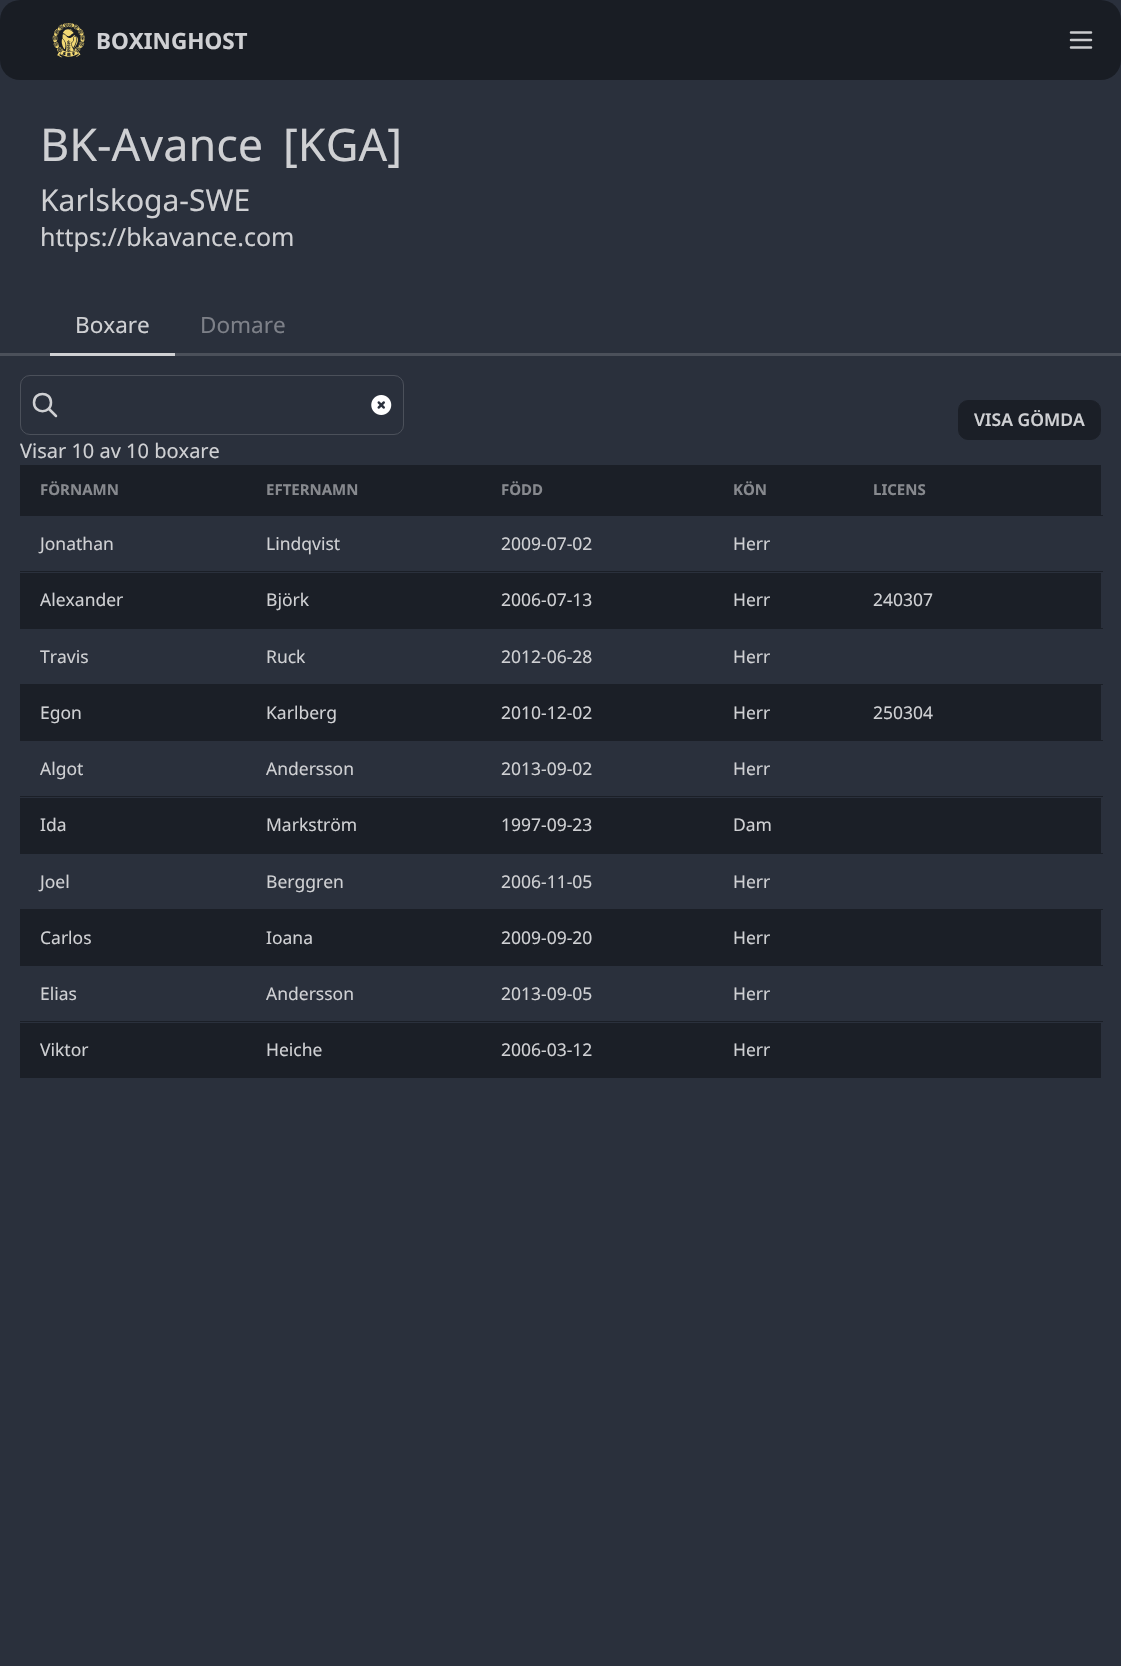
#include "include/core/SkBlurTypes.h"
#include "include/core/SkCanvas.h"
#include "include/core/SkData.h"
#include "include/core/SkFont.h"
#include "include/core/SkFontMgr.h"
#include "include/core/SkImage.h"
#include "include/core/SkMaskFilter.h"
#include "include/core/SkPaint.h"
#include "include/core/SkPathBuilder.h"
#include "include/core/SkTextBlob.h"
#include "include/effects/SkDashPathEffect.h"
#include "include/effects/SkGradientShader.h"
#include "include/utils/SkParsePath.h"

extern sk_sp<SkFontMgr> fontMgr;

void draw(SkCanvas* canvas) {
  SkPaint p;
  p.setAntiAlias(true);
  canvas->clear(SkColorSetRGB(42, 48, 60));
  p.setColor(SkColorSetRGB(25, 29, 36));
  canvas->drawRoundRect(SkRect::MakeLTRB(0, 0, 1121, 80), 20, 20, p);
  canvas->drawImageRect(SkImages::DeferredFromEncodedData(SkData::MakeFromFileName("images/1.png")), SkRect::MakeLTRB(52, 23, 85, 58), SkSamplingOptions());
  p.setStyle(SkPaint::kStroke_Style);
  p.setStrokeWidth(2.5f);
  p.setStrokeCap(SkPaint::kRound_Cap);
  p.setStrokeJoin(SkPaint::kRound_Join);
  p.setColor(SkColorSetRGB(202, 203, 206));
  canvas->drawPath(SkPathBuilder().moveTo(1071, 32.5f).lineTo(1091, 32.5f).moveTo(1071, 40).lineTo(1091, 40).moveTo(1071, 47.5f).lineTo(1091, 47.5f).detach(), p);
  p.setStyle(SkPaint::kFill_Style);
  p.setColor(SkColorSetRGB(207, 208, 211));
  canvas->drawRect(SkRect::MakeLTRB(50, 353, 175, 356), p);
  p.setColor(SkColorSetRGB(75, 80, 90));
  canvas->drawRect(SkRect::MakeLTRB(175, 353, 1121, 356), p);
  canvas->drawRect(SkRect::MakeLTRB(0, 353, 50, 356), p);
  p.setColor(SkColorSetRGB(27, 31, 39));
  canvas->drawRoundRect(SkRect::MakeLTRB(958.5f, 400.5f, 1100.5f, 439.5f), 9.5f, 9.5f, p);
  p.setStyle(SkPaint::kStroke_Style);
  p.setStrokeWidth(1);
  p.setStrokeCap(SkPaint::kButt_Cap);
  p.setStrokeJoin(SkPaint::kMiter_Join);
  canvas->drawRoundRect(SkRect::MakeLTRB(958.5f, 400.5f, 1100.5f, 439.5f), 9.5f, 9.5f, p);
  p.setColor(SkColorSetRGB(75, 80, 90));
  canvas->drawRoundRect(SkRect::MakeLTRB(20.5f, 375.5f, 403.5f, 434.5f), 9.5f, 9.5f, p);
  p.setStrokeWidth(2.5f);
  p.setStrokeCap(SkPaint::kRound_Cap);
  p.setStrokeJoin(SkPaint::kRound_Join);
  p.setColor(SkColorSetRGB(207, 208, 211));
  canvas->drawPath(SkPathBuilder().moveTo(56, 416).lineTo(49, 409).moveTo(51, 402.5f).cubicTo(51, 414, 34, 414, 34, 402.5f).cubicTo(34, 391, 51, 391, 51, 402.5f).close().detach(), p);
  canvas->drawImageRect(SkImages::DeferredFromEncodedData(SkData::MakeFromFileName("images/2.png")), SkRect::MakeLTRB(371, 395, 392, 415), SkSamplingOptions());
  p.setStyle(SkPaint::kFill_Style);
  p.setColor(SkColorSetRGB(27, 31, 39));
  canvas->drawRect(SkRect::MakeLTRB(20, 465, 1101, 515), p);
  canvas->drawRect(SkRect::MakeLTRB(20, 515, 1103, 516), p);
  canvas->drawRect(SkRect::MakeLTRB(20, 571, 1103, 572), p);
  canvas->drawRect(SkRect::MakeLTRB(20, 573, 1101, 628), p);
  canvas->drawRect(SkRect::MakeLTRB(20, 628, 1103, 629), p);
  canvas->drawRect(SkRect::MakeLTRB(20, 684, 1103, 685), p);
  canvas->drawRect(SkRect::MakeLTRB(20, 685, 1101, 740), p);
  canvas->drawRect(SkRect::MakeLTRB(20, 740, 1103, 741), p);
  canvas->drawRect(SkRect::MakeLTRB(20, 796, 1103, 797), p);
  canvas->drawRect(SkRect::MakeLTRB(20, 798, 1101, 853), p);
  canvas->drawRect(SkRect::MakeLTRB(20, 853, 1103, 854), p);
  canvas->drawRect(SkRect::MakeLTRB(20, 909, 1103, 910), p);
  canvas->drawRect(SkRect::MakeLTRB(20, 910, 1101, 965), p);
  canvas->drawRect(SkRect::MakeLTRB(20, 965, 1103, 966), p);
  canvas->drawRect(SkRect::MakeLTRB(20, 1021, 1103, 1022), p);
  canvas->drawRect(SkRect::MakeLTRB(20, 1023, 1101, 1078), p);
  SkFont font1(fontMgr->matchFamilyStyle("Noto Sans", SkFontStyle::Bold()), 22.5f);
  font1.setSubpixel(true);
  p.setColor(SkColorSetRGB(207, 208, 211));
  canvas->drawString("BOXINGHOST", 96, 49, font1, p);
  SkFont font2(fontMgr->matchFamilyStyle("Noto Sans", SkFontStyle::Normal()), 45);
  font2.setSubpixel(true);
  canvas->drawString("BK-Avance", 40, 161, font2, p);
  canvas->drawString("[KGA]", 283, 161, font2, p);
  SkFont font3(fontMgr->matchFamilyStyle("Noto Sans", SkFontStyle::Normal()), 30);
  font3.setSubpixel(true);
  canvas->drawString("Karlskoga-SWE", 40, 211, font3, p);
  SkFont font4(fontMgr->matchFamilyStyle("Noto Sans", SkFontStyle::Normal()), 25);
  font4.setSubpixel(true);
  canvas->drawString("https://bkavance.com", 40, 246, font4, p);
  SkFont font5(fontMgr->matchFamilyStyle("Noto Sans", SkFontStyle::Normal()), 22.5f);
  font5.setSubpixel(true);
  canvas->drawString("Boxare", 75, 333, font5, p);
  p.setColor(SkColorSetRGB(125, 128, 136));
  canvas->drawString("Domare", 200, 333, font5, p);
  SkFont font6(fontMgr->matchFamilyStyle("Noto Sans", SkFontStyle(600, SkFontStyle::kNormal_Width, SkFontStyle::kUpright_Slant)), 17.5f);
  font6.setSubpixel(true);
  p.setColor(SkColorSetRGB(207, 208, 211));
  canvas->drawString("VISA GÖMDA", 974, 426, font6, p);
  SkFont font7(fontMgr->matchFamilyStyle("Noto Sans", SkFontStyle::Normal()), 20);
  font7.setSubpixel(true);
  canvas->drawString("Visar 10 av 10 boxare", 20, 458, font7, p);
  SkFont font8(fontMgr->matchFamilyStyle("Noto Sans", SkFontStyle::Bold()), 15);
  font8.setSubpixel(true);
  p.setColor(SkColorSetRGB(135, 137, 142));
  canvas->drawString("FÖRNAMN", 40, 495, font8, p);
  canvas->drawString("EFTERNAMN", 266, 495, font8, p);
  canvas->drawString("FÖDD", 501, 495, font8, p);
  canvas->drawString("KÖN", 733, 495, font8, p);
  canvas->drawString("LICENS", 873, 495, font8, p);
  SkFont font9(fontMgr->matchFamilyStyle("Noto Sans", SkFontStyle::Normal()), 17.5f);
  font9.setSubpixel(true);
  p.setColor(SkColorSetRGB(207, 208, 211));
  canvas->drawString("Jonathan", 40, 550, font9, p);
  canvas->drawString("Lindqvist", 266, 550, font9, p);
  canvas->drawString("2009-07-02", 501, 550, font9, p);
  canvas->drawString("Herr", 733, 550, font9, p);
  canvas->drawString("Alexander", 40, 606, font9, p);
  canvas->drawString("Björk", 266, 606, font9, p);
  canvas->drawString("2006-07-13", 501, 606, font9, p);
  canvas->drawString("Herr", 733, 606, font9, p);
  canvas->drawString("240307", 873, 606, font9, p);
  canvas->drawString("Travis", 40, 663, font9, p);
  canvas->drawString("Ruck", 266, 663, font9, p);
  canvas->drawString("2012-06-28", 501, 663, font9, p);
  canvas->drawString("Herr", 733, 663, font9, p);
  canvas->drawString("Egon", 40, 719, font9, p);
  canvas->drawString("Karlberg", 266, 719, font9, p);
  canvas->drawString("2010-12-02", 501, 719, font9, p);
  canvas->drawString("Herr", 733, 719, font9, p);
  canvas->drawString("250304", 873, 719, font9, p);
  canvas->drawString("Algot", 40, 775, font9, p);
  canvas->drawString("Andersson", 266, 775, font9, p);
  canvas->drawString("2013-09-02", 501, 775, font9, p);
  canvas->drawString("Herr", 733, 775, font9, p);
  canvas->drawString("Ida", 40, 831, font9, p);
  canvas->drawString("Markström", 266, 831, font9, p);
  canvas->drawString("1997-09-23", 501, 831, font9, p);
  canvas->drawString("Dam", 733, 831, font9, p);
  canvas->drawString("Joel", 40, 888, font9, p);
  canvas->drawString("Berggren", 266, 888, font9, p);
  canvas->drawString("2006-11-05", 501, 888, font9, p);
  canvas->drawString("Herr", 733, 888, font9, p);
  canvas->drawString("Carlos", 40, 944, font9, p);
  canvas->drawString("Ioana", 266, 944, font9, p);
  canvas->drawString("2009-09-20", 501, 944, font9, p);
  canvas->drawString("Herr", 733, 944, font9, p);
  canvas->drawString("Elias", 40, 1000, font9, p);
  canvas->drawString("Andersson", 266, 1000, font9, p);
  canvas->drawString("2013-09-05", 501, 1000, font9, p);
  canvas->drawString("Herr", 733, 1000, font9, p);
  canvas->drawString("Viktor", 40, 1056, font9, p);
  canvas->drawString("Heiche", 266, 1056, font9, p);
  canvas->drawString("2006-03-12", 501, 1056, font9, p);
  canvas->drawString("Herr", 733, 1056, font9, p);
}
